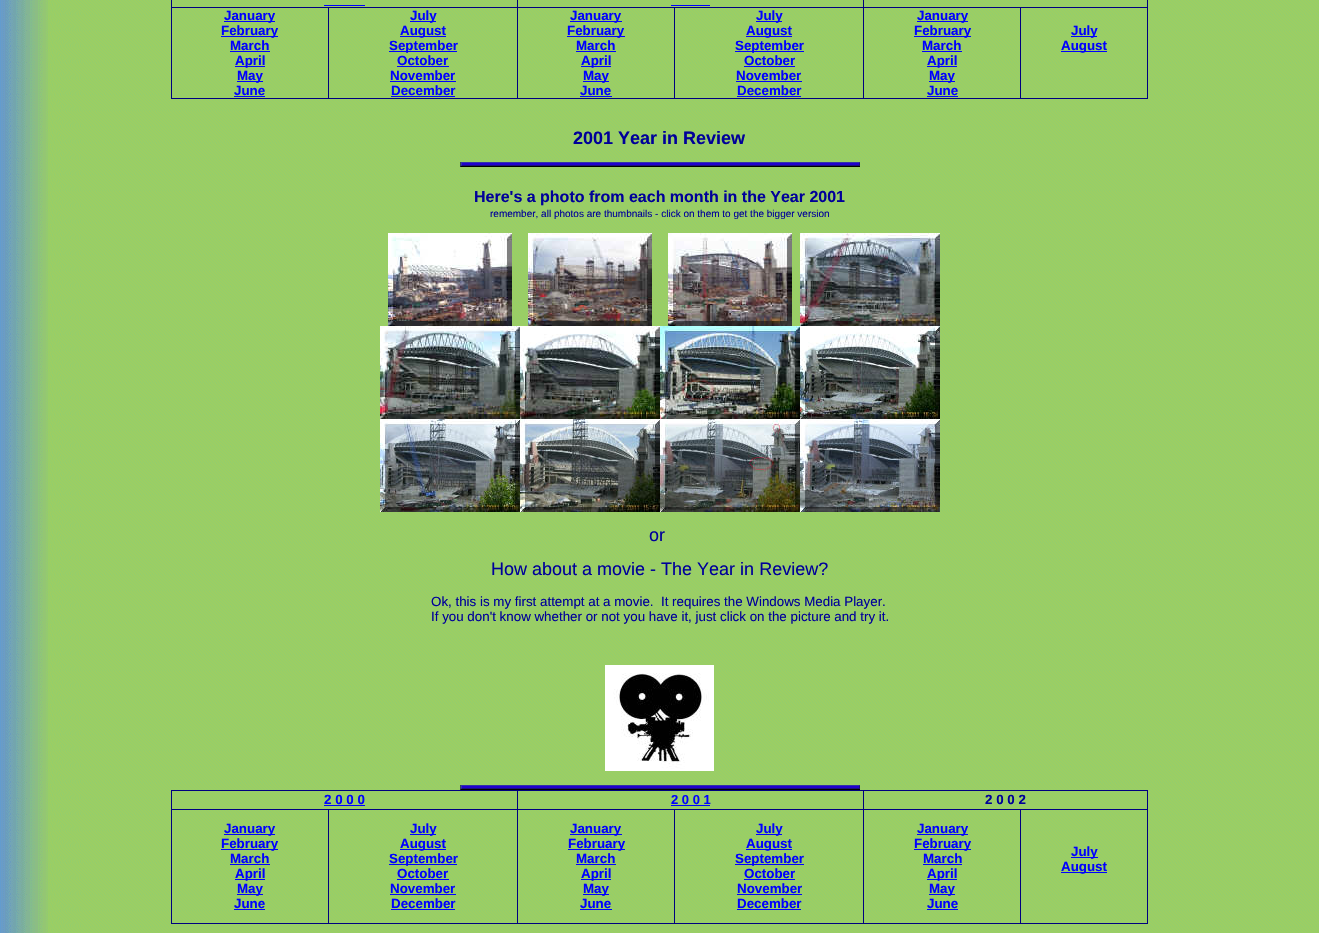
#include "include/core/SkBlurTypes.h"
#include "include/core/SkCanvas.h"
#include "include/core/SkData.h"
#include "include/core/SkFont.h"
#include "include/core/SkFontMgr.h"
#include "include/core/SkImage.h"
#include "include/core/SkMaskFilter.h"
#include "include/core/SkPaint.h"
#include "include/core/SkPathBuilder.h"
#include "include/core/SkTextBlob.h"
#include "include/effects/SkDashPathEffect.h"
#include "include/effects/SkGradientShader.h"
#include "include/utils/SkParsePath.h"

extern sk_sp<SkFontMgr> fontMgr;

void draw(SkCanvas* canvas) {
  SkPaint p;
  p.setAntiAlias(true);
  canvas->clear(SK_ColorWHITE);
  canvas->drawImageRect(SkImages::DeferredFromEncodedData(SkData::MakeFromFileName("images/1.png")), SkRect::MakeLTRB(0, 0, 1319, 933), SkSamplingOptions());
  p.setColor(SkColorSetRGB(0, 0, 128));
  canvas->drawRect(SkRect::MakeLTRB(1147, 0, 1148, 99), p);
  canvas->drawRect(SkRect::MakeLTRB(171, 98, 1148, 99), p);
  canvas->drawRect(SkRect::MakeLTRB(171, 0, 172, 99), p);
  p.setColor(SkColorSetRGB(0, 0, 255));
  canvas->drawRect(SkRect::MakeLTRB(324, 5, 365, 6), p);
  p.setColor(SkColorSetRGB(0, 0, 128));
  canvas->drawRect(SkRect::MakeLTRB(1020, 7, 1148, 8), p);
  canvas->drawRect(SkRect::MakeLTRB(1020, 7, 1021, 99), p);
  canvas->drawRect(SkRect::MakeLTRB(863, 7, 1021, 8), p);
  canvas->drawRect(SkRect::MakeLTRB(863, 7, 864, 99), p);
  canvas->drawRect(SkRect::MakeLTRB(674, 7, 864, 8), p);
  canvas->drawRect(SkRect::MakeLTRB(674, 7, 675, 99), p);
  canvas->drawRect(SkRect::MakeLTRB(517, 7, 675, 8), p);
  canvas->drawRect(SkRect::MakeLTRB(517, 7, 518, 99), p);
  canvas->drawRect(SkRect::MakeLTRB(328, 7, 518, 8), p);
  canvas->drawRect(SkRect::MakeLTRB(517, 0, 518, 8), p);
  p.setColor(SkColorSetRGB(0, 0, 255));
  canvas->drawRect(SkRect::MakeLTRB(671, 5, 710, 6), p);
  p.setColor(SkColorSetRGB(0, 0, 128));
  canvas->drawRect(SkRect::MakeLTRB(863, 0, 864, 8), p);
  canvas->drawRect(SkRect::MakeLTRB(328, 7, 329, 99), p);
  canvas->drawRect(SkRect::MakeLTRB(171, 7, 329, 8), p);
  p.setColor(SkColorSetRGB(0, 0, 255));
  canvas->drawRect(SkRect::MakeLTRB(224, 21, 275, 22), p);
  canvas->drawRect(SkRect::MakeLTRB(221, 36, 278, 37), p);
  canvas->drawRect(SkRect::MakeLTRB(230, 51, 270, 52), p);
  canvas->drawRect(SkRect::MakeLTRB(235, 66, 265, 67), p);
  canvas->drawRect(SkRect::MakeLTRB(237, 81, 263, 82), p);
  canvas->drawRect(SkRect::MakeLTRB(234, 96, 265, 97), p);
  canvas->drawRect(SkRect::MakeLTRB(410, 21, 436, 22), p);
  canvas->drawRect(SkRect::MakeLTRB(400, 36, 446, 37), p);
  canvas->drawRect(SkRect::MakeLTRB(389, 51, 457, 52), p);
  canvas->drawRect(SkRect::MakeLTRB(397, 66, 449, 67), p);
  canvas->drawRect(SkRect::MakeLTRB(390, 81, 456, 82), p);
  canvas->drawRect(SkRect::MakeLTRB(391, 96, 455, 97), p);
  canvas->drawRect(SkRect::MakeLTRB(570, 21, 622, 22), p);
  canvas->drawRect(SkRect::MakeLTRB(567, 36, 625, 37), p);
  canvas->drawRect(SkRect::MakeLTRB(576, 51, 616, 52), p);
  canvas->drawRect(SkRect::MakeLTRB(581, 66, 611, 67), p);
  canvas->drawRect(SkRect::MakeLTRB(583, 81, 609, 82), p);
  canvas->drawRect(SkRect::MakeLTRB(580, 96, 612, 97), p);
  canvas->drawRect(SkRect::MakeLTRB(756, 21, 782, 22), p);
  canvas->drawRect(SkRect::MakeLTRB(746, 36, 792, 37), p);
  canvas->drawRect(SkRect::MakeLTRB(735, 51, 804, 52), p);
  canvas->drawRect(SkRect::MakeLTRB(744, 66, 795, 67), p);
  canvas->drawRect(SkRect::MakeLTRB(736, 81, 802, 82), p);
  canvas->drawRect(SkRect::MakeLTRB(737, 96, 801, 97), p);
  canvas->drawRect(SkRect::MakeLTRB(917, 21, 968, 22), p);
  canvas->drawRect(SkRect::MakeLTRB(914, 36, 971, 37), p);
  canvas->drawRect(SkRect::MakeLTRB(922, 51, 962, 52), p);
  canvas->drawRect(SkRect::MakeLTRB(927, 66, 957, 67), p);
  canvas->drawRect(SkRect::MakeLTRB(929, 81, 955, 82), p);
  canvas->drawRect(SkRect::MakeLTRB(927, 96, 958, 97), p);
  canvas->drawRect(SkRect::MakeLTRB(1071, 36, 1097, 37), p);
  canvas->drawRect(SkRect::MakeLTRB(1061, 51, 1107, 52), p);
  canvas->drawImageRect(SkImages::DeferredFromEncodedData(SkData::MakeFromFileName("images/2.png")), SkRect::MakeLTRB(460, 162, 860, 167), SkSamplingOptions());
  canvas->drawImageRect(SkImages::DeferredFromEncodedData(SkData::MakeFromFileName("images/3.png")), SkRect::MakeLTRB(388, 233, 512, 326), SkSamplingOptions());
  canvas->drawImageRect(SkImages::DeferredFromEncodedData(SkData::MakeFromFileName("images/4.png")), SkRect::MakeLTRB(528, 233, 652, 326), SkSamplingOptions());
  canvas->drawImageRect(SkImages::DeferredFromEncodedData(SkData::MakeFromFileName("images/5.png")), SkRect::MakeLTRB(668, 233, 792, 326), SkSamplingOptions());
  canvas->drawImageRect(SkImages::DeferredFromEncodedData(SkData::MakeFromFileName("images/6.png")), SkRect::MakeLTRB(800, 233, 940, 326), SkSamplingOptions());
  canvas->drawImageRect(SkImages::DeferredFromEncodedData(SkData::MakeFromFileName("images/7.png")), SkRect::MakeLTRB(380, 326, 520, 419), SkSamplingOptions());
  canvas->drawImageRect(SkImages::DeferredFromEncodedData(SkData::MakeFromFileName("images/8.png")), SkRect::MakeLTRB(520, 326, 660, 419), SkSamplingOptions());
  canvas->drawImageRect(SkImages::DeferredFromEncodedData(SkData::MakeFromFileName("images/9.png")), SkRect::MakeLTRB(660, 326, 800, 419), SkSamplingOptions());
  canvas->drawImageRect(SkImages::DeferredFromEncodedData(SkData::MakeFromFileName("images/10.png")), SkRect::MakeLTRB(800, 326, 940, 419), SkSamplingOptions());
  canvas->drawImageRect(SkImages::DeferredFromEncodedData(SkData::MakeFromFileName("images/11.png")), SkRect::MakeLTRB(380, 419, 520, 512), SkSamplingOptions());
  canvas->drawImageRect(SkImages::DeferredFromEncodedData(SkData::MakeFromFileName("images/12.png")), SkRect::MakeLTRB(520, 419, 660, 512), SkSamplingOptions());
  canvas->drawImageRect(SkImages::DeferredFromEncodedData(SkData::MakeFromFileName("images/13.png")), SkRect::MakeLTRB(660, 419, 800, 512), SkSamplingOptions());
  canvas->drawImageRect(SkImages::DeferredFromEncodedData(SkData::MakeFromFileName("images/14.png")), SkRect::MakeLTRB(800, 419, 940, 512), SkSamplingOptions());
  canvas->drawImageRect(SkImages::DeferredFromEncodedData(SkData::MakeFromFileName("images/15.png")), SkRect::MakeLTRB(605, 665, 714, 771), SkSamplingOptions());
  canvas->drawImageRect(SkImages::DeferredFromEncodedData(SkData::MakeFromFileName("images/2.png")), SkRect::MakeLTRB(460, 785, 860, 790), SkSamplingOptions());
  p.setColor(SkColorSetRGB(0, 0, 128));
  canvas->drawRect(SkRect::MakeLTRB(171, 790, 1148, 791), p);
  canvas->drawRect(SkRect::MakeLTRB(1147, 790, 1148, 924), p);
  canvas->drawRect(SkRect::MakeLTRB(171, 923, 1148, 924), p);
  canvas->drawRect(SkRect::MakeLTRB(171, 790, 172, 924), p);
  p.setColor(SkColorSetRGB(0, 0, 255));
  canvas->drawRect(SkRect::MakeLTRB(324, 805, 365, 806), p);
  p.setColor(SkColorSetRGB(0, 0, 128));
  canvas->drawRect(SkRect::MakeLTRB(1020, 809, 1148, 810), p);
  canvas->drawRect(SkRect::MakeLTRB(1020, 809, 1021, 924), p);
  canvas->drawRect(SkRect::MakeLTRB(863, 809, 1021, 810), p);
  canvas->drawRect(SkRect::MakeLTRB(863, 809, 864, 924), p);
  canvas->drawRect(SkRect::MakeLTRB(674, 809, 864, 810), p);
  canvas->drawRect(SkRect::MakeLTRB(674, 809, 675, 924), p);
  canvas->drawRect(SkRect::MakeLTRB(517, 809, 675, 810), p);
  canvas->drawRect(SkRect::MakeLTRB(517, 809, 518, 924), p);
  canvas->drawRect(SkRect::MakeLTRB(328, 809, 518, 810), p);
  canvas->drawRect(SkRect::MakeLTRB(517, 790, 518, 810), p);
  p.setColor(SkColorSetRGB(0, 0, 255));
  canvas->drawRect(SkRect::MakeLTRB(671, 805, 710, 806), p);
  p.setColor(SkColorSetRGB(0, 0, 128));
  canvas->drawRect(SkRect::MakeLTRB(863, 790, 864, 810), p);
  canvas->drawRect(SkRect::MakeLTRB(328, 809, 329, 924), p);
  canvas->drawRect(SkRect::MakeLTRB(171, 809, 329, 810), p);
  p.setColor(SkColorSetRGB(0, 0, 255));
  canvas->drawRect(SkRect::MakeLTRB(224, 834, 275, 835), p);
  canvas->drawRect(SkRect::MakeLTRB(221, 849, 278, 850), p);
  canvas->drawRect(SkRect::MakeLTRB(230, 864, 270, 865), p);
  canvas->drawRect(SkRect::MakeLTRB(235, 879, 265, 880), p);
  canvas->drawRect(SkRect::MakeLTRB(237, 894, 263, 895), p);
  canvas->drawRect(SkRect::MakeLTRB(234, 909, 265, 910), p);
  canvas->drawRect(SkRect::MakeLTRB(410, 834, 436, 835), p);
  canvas->drawRect(SkRect::MakeLTRB(400, 849, 446, 850), p);
  canvas->drawRect(SkRect::MakeLTRB(389, 864, 457, 865), p);
  canvas->drawRect(SkRect::MakeLTRB(397, 879, 449, 880), p);
  canvas->drawRect(SkRect::MakeLTRB(390, 894, 456, 895), p);
  canvas->drawRect(SkRect::MakeLTRB(391, 909, 455, 910), p);
  canvas->drawRect(SkRect::MakeLTRB(570, 834, 622, 835), p);
  canvas->drawRect(SkRect::MakeLTRB(568, 849, 625, 850), p);
  canvas->drawRect(SkRect::MakeLTRB(576, 864, 616, 865), p);
  canvas->drawRect(SkRect::MakeLTRB(581, 879, 611, 880), p);
  canvas->drawRect(SkRect::MakeLTRB(583, 894, 609, 895), p);
  canvas->drawRect(SkRect::MakeLTRB(580, 909, 612, 910), p);
  canvas->drawRect(SkRect::MakeLTRB(756, 834, 782, 835), p);
  canvas->drawRect(SkRect::MakeLTRB(746, 849, 792, 850), p);
  canvas->drawRect(SkRect::MakeLTRB(735, 864, 804, 865), p);
  canvas->drawRect(SkRect::MakeLTRB(744, 879, 795, 880), p);
  canvas->drawRect(SkRect::MakeLTRB(737, 894, 802, 895), p);
  canvas->drawRect(SkRect::MakeLTRB(737, 909, 801, 910), p);
  canvas->drawRect(SkRect::MakeLTRB(917, 834, 968, 835), p);
  canvas->drawRect(SkRect::MakeLTRB(914, 849, 971, 850), p);
  canvas->drawRect(SkRect::MakeLTRB(923, 864, 962, 865), p);
  canvas->drawRect(SkRect::MakeLTRB(927, 879, 957, 880), p);
  canvas->drawRect(SkRect::MakeLTRB(929, 894, 955, 895), p);
  canvas->drawRect(SkRect::MakeLTRB(927, 909, 958, 910), p);
  canvas->drawRect(SkRect::MakeLTRB(1071, 857, 1098, 858), p);
  canvas->drawRect(SkRect::MakeLTRB(1061, 872, 1107, 873), p);
  SkFont font1(fontMgr->matchFamilyStyle("Liberation Sans", SkFontStyle::Bold()), 13.35f);
  font1.setSubpixel(true);
  canvas->drawString("January", 224, 20, font1, p);
  canvas->drawString("February", 221, 35, font1, p);
  canvas->drawString("March", 230, 50, font1, p);
  canvas->drawString("April", 235, 65, font1, p);
  canvas->drawString("May", 237, 80, font1, p);
  canvas->drawString("June", 234, 95, font1, p);
  canvas->drawString("July", 410, 20, font1, p);
  canvas->drawString("August", 400, 35, font1, p);
  canvas->drawString("September", 389, 50, font1, p);
  canvas->drawString("October", 397, 65, font1, p);
  canvas->drawString("November", 390, 80, font1, p);
  canvas->drawString("December", 391, 95, font1, p);
  canvas->drawString("January", 570, 20, font1, p);
  canvas->drawString("February", 567, 35, font1, p);
  canvas->drawString("March", 576, 50, font1, p);
  canvas->drawString("April", 581, 65, font1, p);
  canvas->drawString("May", 583, 80, font1, p);
  canvas->drawString("June", 580, 95, font1, p);
  canvas->drawString("July", 756, 20, font1, p);
  canvas->drawString("August", 746, 35, font1, p);
  canvas->drawString("September", 735, 50, font1, p);
  canvas->drawString("October", 744, 65, font1, p);
  canvas->drawString("November", 736, 80, font1, p);
  canvas->drawString("December", 737, 95, font1, p);
  canvas->drawString("January", 917, 20, font1, p);
  canvas->drawString("February", 914, 35, font1, p);
  canvas->drawString("March", 922, 50, font1, p);
  canvas->drawString("April", 927, 65, font1, p);
  canvas->drawString("May", 929, 80, font1, p);
  canvas->drawString("June", 927, 95, font1, p);
  canvas->drawString("July", 1071, 35, font1, p);
  canvas->drawString("August", 1061, 50, font1, p);
  SkFont font2(fontMgr->matchFamilyStyle("Liberation Sans", SkFontStyle::Bold()), 18);
  font2.setSubpixel(true);
  p.setColor(SkColorSetRGB(0, 0, 153));
  canvas->drawString("2001 Year in Review", 573, 144, font2, p);
  SkFont font3(fontMgr->matchFamilyStyle("Liberation Sans", SkFontStyle::Bold()), 16);
  font3.setSubpixel(true);
  canvas->drawString("Here's a photo from each month in the Year 2001", 474, 202, font3, p);
  SkFont font4(fontMgr->matchFamilyStyle("Liberation Sans", SkFontStyle::Normal()), 10);
  font4.setSubpixel(true);
  canvas->drawString("remember, all photos are thumbnails - click on them to get the bigger version", 490, 217, font4, p);
  SkFont font5(fontMgr->matchFamilyStyle("Liberation Sans", SkFontStyle::Normal()), 18);
  font5.setSubpixel(true);
  canvas->drawString("or", 649, 541, font5, p);
  canvas->drawString("How about a movie - The Year in Review?", 491, 575, font5, p);
  SkFont font6(fontMgr->matchFamilyStyle("Liberation Sans", SkFontStyle::Normal()), 13.35f);
  font6.setSubpixel(true);
  canvas->drawString("Ok, this is my first attempt at a movie.  It requires the Windows Media Player.", 431, 606, font6, p);
  canvas->drawString("If you don't know whether or not you have it, just click on the picture and try it.", 431, 621, font6, p);
  p.setColor(SkColorSetRGB(0, 0, 255));
  canvas->drawString("2 0 0 0", 324, 804, font1, p);
  SkFont font7(fontMgr->matchFamilyStyle("Liberation Sans", SkFontStyle::Bold()), 13);
  font7.setSubpixel(true);
  canvas->drawString("2 0 0 1", 671, 804, font7, p);
  p.setColor(SkColorSetRGB(0, 0, 153));
  canvas->drawString("2 0 0 2", 985, 804, font1, p);
  p.setColor(SkColorSetRGB(0, 0, 255));
  canvas->drawString("January", 224, 833, font1, p);
  canvas->drawString("February", 221, 848, font1, p);
  canvas->drawString("March", 230, 863, font1, p);
  canvas->drawString("April", 235, 878, font1, p);
  canvas->drawString("May", 237, 893, font1, p);
  canvas->drawString("June", 234, 908, font1, p);
  canvas->drawString("July", 410, 833, font1, p);
  canvas->drawString("August", 400, 848, font1, p);
  canvas->drawString("September", 389, 863, font1, p);
  canvas->drawString("October", 397, 878, font1, p);
  canvas->drawString("November", 390, 893, font1, p);
  canvas->drawString("December", 391, 908, font1, p);
  canvas->drawString("January", 570, 833, font1, p);
  canvas->drawString("February", 568, 848, font1, p);
  canvas->drawString("March", 576, 863, font1, p);
  canvas->drawString("April", 581, 878, font1, p);
  canvas->drawString("May", 583, 893, font1, p);
  canvas->drawString("June", 580, 908, font1, p);
  canvas->drawString("July", 756, 833, font1, p);
  canvas->drawString("August", 746, 848, font1, p);
  canvas->drawString("September", 735, 863, font1, p);
  canvas->drawString("October", 744, 878, font1, p);
  canvas->drawString("November", 737, 893, font1, p);
  canvas->drawString("December", 737, 908, font1, p);
  canvas->drawString("January", 917, 833, font1, p);
  canvas->drawString("February", 914, 848, font1, p);
  canvas->drawString("March", 923, 863, font1, p);
  canvas->drawString("April", 927, 878, font1, p);
  canvas->drawString("May", 929, 893, font1, p);
  canvas->drawString("June", 927, 908, font1, p);
  canvas->drawString("July", 1071, 856, font1, p);
  canvas->drawString("August", 1061, 871, font1, p);
}
